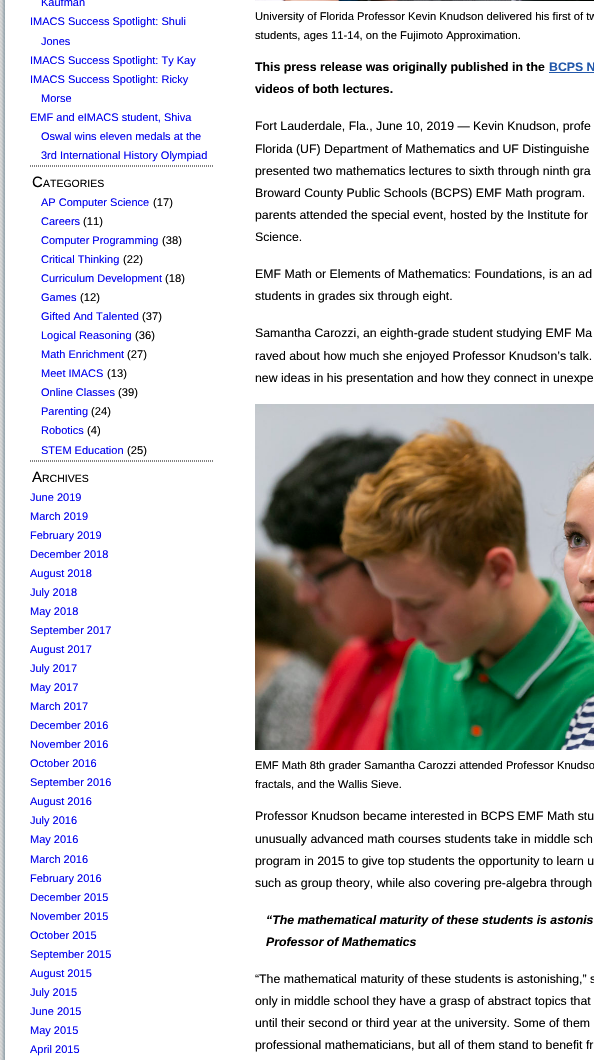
#include "include/core/SkBlurTypes.h"
#include "include/core/SkCanvas.h"
#include "include/core/SkData.h"
#include "include/core/SkFont.h"
#include "include/core/SkFontMgr.h"
#include "include/core/SkImage.h"
#include "include/core/SkMaskFilter.h"
#include "include/core/SkPaint.h"
#include "include/core/SkPathBuilder.h"
#include "include/core/SkTextBlob.h"
#include "include/effects/SkDashPathEffect.h"
#include "include/effects/SkGradientShader.h"
#include "include/utils/SkParsePath.h"

extern sk_sp<SkFontMgr> fontMgr;

void draw(SkCanvas* canvas) {
  SkPaint p;
  p.setAntiAlias(true);
  canvas->clear(SK_ColorWHITE);
  canvas->drawImageRect(SkImages::DeferredFromEncodedData(SkData::MakeFromFileName("images/1.png")), SkRect::MakeLTRB(0, 0, 5, 1060), SkSamplingOptions());
  canvas->drawImageRect(SkImages::DeferredFromEncodedData(SkData::MakeFromFileName("images/2.png")), SkRect::MakeLTRB(1, 0, 594, 1060), SkSamplingOptions());
  p.setStyle(SkPaint::kStroke_Style);
  p.setStrokeWidth(1);
  p.setColor(SkColorSetRGB(128, 128, 128));
  p.setPathEffect(SkDashPathEffect::Make({{1, 1}}, 0));
  canvas->drawPath(SkPathBuilder().moveTo(30, 165.5f).lineTo(213, 165.5f).detach(), p);
  p.setPathEffect(nullptr);
  p.setStyle(SkPaint::kFill_Style);
  canvas->drawRect(SkRect::MakeLTRB(212, 165, 213, 167), p);
  p.setStyle(SkPaint::kStroke_Style);
  p.setPathEffect(SkDashPathEffect::Make({{1, 1}}, 0));
  canvas->drawPath(SkPathBuilder().moveTo(30, 166.5f).lineTo(213, 166.5f).detach(), p);
  p.setPathEffect(nullptr);
  p.setPathEffect(SkDashPathEffect::Make({{1, 1}}, 0));
  canvas->drawPath(SkPathBuilder().moveTo(30, 460.5f).lineTo(213, 460.5f).detach(), p);
  p.setPathEffect(nullptr);
  p.setStyle(SkPaint::kFill_Style);
  canvas->drawRect(SkRect::MakeLTRB(212, 460, 213, 462), p);
  p.setStyle(SkPaint::kStroke_Style);
  p.setPathEffect(SkDashPathEffect::Make({{1, 1}}, 0));
  canvas->drawPath(SkPathBuilder().moveTo(30, 461.5f).lineTo(213, 461.5f).detach(), p);
  p.setPathEffect(nullptr);
  canvas->drawImageRect(SkImages::DeferredFromEncodedData(SkData::MakeFromFileName("images/3.png")), SkRect::MakeLTRB(255, 0, 594, 1), SkSamplingOptions());
  p.setStyle(SkPaint::kFill_Style);
  p.setColor(SkColorSetRGB(35, 88, 170));
  canvas->drawRect(SkRect::MakeLTRB(549, 72, 594, 73), p);
  canvas->drawImageRect(SkImages::DeferredFromEncodedData(SkData::MakeFromFileName("images/4.png")), SkRect::MakeLTRB(255, 404, 594, 750), SkSamplingOptions());
  SkFont font1(fontMgr->matchFamilyStyle("Liberation Sans", SkFontStyle::Normal()), 11);
  font1.setSubpixel(true);
  p.setColor(SkColorSetRGB(0, 0, 238));
  canvas->drawString("Kaufman", 41, 6, font1, p);
  canvas->drawString("IMACS Success Spotlight: Shuli", 30, 25, font1, p);
  canvas->drawString("Jones", 41, 45, font1, p);
  canvas->drawString("IMACS Success Spotlight: Ty Kay", 30, 64, font1, p);
  canvas->drawString("IMACS Success Spotlight: Ricky", 30, 83, font1, p);
  canvas->drawString("Morse", 41, 102, font1, p);
  canvas->drawString("EMF and eIMACS student, Shiva", 30, 121, font1, p);
  canvas->drawString("Oswal wins eleven medals at the", 41, 140, font1, p);
  canvas->drawString("3rd International History Olympiad", 41, 159, font1, p);
  SkFont font2(fontMgr->matchFamilyStyle("Liberation Sans", SkFontStyle::Normal()), 15);
  font2.setSubpixel(true);
  p.setColor(SK_ColorBLACK);
  canvas->drawString("C", 32, 187, font2, p);
  SkFont font3(fontMgr->matchFamilyStyle("Liberation Sans", SkFontStyle::Normal()), 10.5f);
  font3.setSubpixel(true);
  canvas->drawString("ATEGORIES", 43, 187, font3, p);
  p.setColor(SkColorSetRGB(0, 0, 238));
  canvas->drawString("AP Computer Science", 41, 206, font1, p);
  SkFont font4(fontMgr->matchFamilyStyle("Liberation Sans", SkFontStyle::Normal()), 11.2f);
  font4.setSubpixel(true);
  p.setColor(SK_ColorBLACK);
  canvas->drawString("(17)", 153, 206, font4, p);
  p.setColor(SkColorSetRGB(0, 0, 238));
  canvas->drawString("Careers", 41, 225, font1, p);
  p.setColor(SK_ColorBLACK);
  canvas->drawString("(11)", 83, 225, font4, p);
  p.setColor(SkColorSetRGB(0, 0, 238));
  canvas->drawString("Computer Programming", 41, 244, font1, p);
  p.setColor(SK_ColorBLACK);
  canvas->drawString("(38)", 162, 244, font4, p);
  p.setColor(SkColorSetRGB(0, 0, 238));
  canvas->drawString("Critical Thinking", 41, 263, font1, p);
  p.setColor(SK_ColorBLACK);
  canvas->drawString("(22)", 123, 263, font4, p);
  p.setColor(SkColorSetRGB(0, 0, 238));
  canvas->drawString("Curriculum Development", 41, 282, font1, p);
  p.setColor(SK_ColorBLACK);
  canvas->drawString("(18)", 165, 282, font4, p);
  p.setColor(SkColorSetRGB(0, 0, 238));
  canvas->drawString("Games", 41, 301, font1, p);
  p.setColor(SK_ColorBLACK);
  canvas->drawString("(12)", 80, 301, font4, p);
  p.setColor(SkColorSetRGB(0, 0, 238));
  canvas->drawString("Gifted And Talented", 41, 320, font1, p);
  p.setColor(SK_ColorBLACK);
  canvas->drawString("(37)", 142, 320, font4, p);
  p.setColor(SkColorSetRGB(0, 0, 238));
  canvas->drawString("Logical Reasoning", 41, 339, font1, p);
  p.setColor(SK_ColorBLACK);
  canvas->drawString("(36)", 135, 339, font4, p);
  p.setColor(SkColorSetRGB(0, 0, 238));
  canvas->drawString("Math Enrichment", 41, 358, font1, p);
  p.setColor(SK_ColorBLACK);
  canvas->drawString("(27)", 127, 358, font4, p);
  p.setColor(SkColorSetRGB(0, 0, 238));
  canvas->drawString("Meet IMACS", 41, 377, font1, p);
  p.setColor(SK_ColorBLACK);
  canvas->drawString("(13)", 107, 377, font4, p);
  p.setColor(SkColorSetRGB(0, 0, 238));
  canvas->drawString("Online Classes", 41, 396, font1, p);
  p.setColor(SK_ColorBLACK);
  canvas->drawString("(39)", 118, 396, font4, p);
  p.setColor(SkColorSetRGB(0, 0, 238));
  canvas->drawString("Parenting", 41, 415, font1, p);
  p.setColor(SK_ColorBLACK);
  canvas->drawString("(24)", 91, 415, font4, p);
  p.setColor(SkColorSetRGB(0, 0, 238));
  canvas->drawString("Robotics", 41, 434, font1, p);
  p.setColor(SK_ColorBLACK);
  canvas->drawString("(4)", 87, 434, font4, p);
  p.setColor(SkColorSetRGB(0, 0, 238));
  canvas->drawString("STEM Education", 41, 454, font1, p);
  p.setColor(SK_ColorBLACK);
  canvas->drawString("(25)", 127, 454, font4, p);
  canvas->drawString("A", 32, 482, font2, p);
  canvas->drawString("RCHIVES", 42, 482, font3, p);
  p.setColor(SkColorSetRGB(0, 0, 238));
  canvas->drawString("June 2019", 30, 501, font1, p);
  canvas->drawString("March 2019", 30, 520, font1, p);
  canvas->drawString("February 2019", 30, 539, font1, p);
  canvas->drawString("December 2018", 30, 558, font1, p);
  canvas->drawString("August 2018", 30, 577, font1, p);
  canvas->drawString("July 2018", 30, 596, font1, p);
  canvas->drawString("May 2018", 30, 615, font1, p);
  canvas->drawString("September 2017", 30, 634, font1, p);
  canvas->drawString("August 2017", 30, 653, font1, p);
  canvas->drawString("July 2017", 30, 672, font1, p);
  canvas->drawString("May 2017", 30, 691, font1, p);
  canvas->drawString("March 2017", 30, 710, font1, p);
  canvas->drawString("December 2016", 30, 729, font1, p);
  canvas->drawString("November 2016", 30, 748, font1, p);
  canvas->drawString("October 2016", 30, 767, font1, p);
  canvas->drawString("September 2016", 30, 786, font1, p);
  canvas->drawString("August 2016", 30, 805, font1, p);
  canvas->drawString("July 2016", 30, 824, font1, p);
  canvas->drawString("May 2016", 30, 843, font1, p);
  canvas->drawString("March 2016", 30, 863, font1, p);
  canvas->drawString("February 2016", 30, 882, font1, p);
  canvas->drawString("December 2015", 30, 901, font1, p);
  canvas->drawString("November 2015", 30, 920, font1, p);
  canvas->drawString("October 2015", 30, 939, font1, p);
  canvas->drawString("September 2015", 30, 958, font1, p);
  canvas->drawString("August 2015", 30, 977, font1, p);
  canvas->drawString("July 2015", 30, 996, font1, p);
  canvas->drawString("June 2015", 30, 1015, font1, p);
  canvas->drawString("May 2015", 30, 1034, font1, p);
  canvas->drawString("April 2015", 30, 1053, font1, p);
  p.setColor(SK_ColorBLACK);
  canvas->drawString("University of Florida Professor Kevin Knudson delivered his first of tw", 255, 20, font4, p);
  canvas->drawString("students, ages 11-14, on the Fujimoto Approximation.", 255, 39, font4, p);
  SkFont font5(fontMgr->matchFamilyStyle("Liberation Sans", SkFontStyle::Bold()), 12.3f);
  font5.setSubpixel(true);
  canvas->drawString("This press release was originally published in the", 255, 71, font5, p);
  p.setColor(SkColorSetRGB(35, 88, 170));
  canvas->drawString("BCPS N", 549, 71, font5, p);
  p.setColor(SK_ColorBLACK);
  canvas->drawString("videos of both lectures.", 255, 93, font5, p);
  SkFont font6(fontMgr->matchFamilyStyle("Liberation Sans", SkFontStyle::Normal()), 12.3f);
  font6.setSubpixel(true);
  canvas->drawString("Fort Lauderdale, Fla., June 10, 2019 — Kevin Knudson, profe", 255, 130, font6, p);
  canvas->drawString("Florida (UF) Department of Mathematics and UF Distinguishe", 255, 153, font6, p);
  canvas->drawString("presented two mathematics lectures to sixth through ninth gra", 255, 175, font6, p);
  canvas->drawString("Broward County Public Schools (BCPS) EMF Math program.", 255, 197, font6, p);
  canvas->drawString("parents attended the special event, hosted by the Institute for", 255, 219, font6, p);
  canvas->drawString("Science.", 255, 241, font6, p);
  canvas->drawString("EMF Math or Elements of Mathematics: Foundations, is an ad", 255, 278, font6, p);
  canvas->drawString("students in grades six through eight.", 255, 300, font6, p);
  canvas->drawString("Samantha Carozzi, an eighth-grade student studying EMF Ma", 255, 337, font6, p);
  canvas->drawString("raved about how much she enjoyed Professor Knudson’s talk.", 255, 360, font6, p);
  canvas->drawString("new ideas in his presentation and how they connect in unexpe", 255, 382, font6, p);
  canvas->drawString("EMF Math 8th grader Samantha Carozzi attended Professor Knudso", 255, 769, font4, p);
  canvas->drawString("fractals, and the Wallis Sieve.", 255, 788, font4, p);
  canvas->drawString("Professor Knudson became interested in BCPS EMF Math stu", 255, 820, font6, p);
  canvas->drawString("unusually advanced math courses students take in middle sch", 255, 843, font6, p);
  canvas->drawString("program in 2015 to give top students the opportunity to learn u", 255, 865, font6, p);
  canvas->drawString("such as group theory, while also covering pre-algebra through", 255, 887, font6, p);
  SkFont font7(fontMgr->matchFamilyStyle("Liberation Sans", SkFontStyle::BoldItalic()), 12.3f);
  font7.setSubpixel(true);
  canvas->drawString("“The mathematical maturity of these students is astonis", 266, 924, font7, p);
  canvas->drawString("Professor of Mathematics", 266, 946, font7, p);
  canvas->drawString("“The mathematical maturity of these students is astonishing,” s", 255, 983, font6, p);
  canvas->drawString("only in middle school they have a grasp of abstract topics that", 255, 1005, font6, p);
  canvas->drawString("until their second or third year at the university. Some of them", 255, 1027, font6, p);
  canvas->drawString("professional mathematicians, but all of them stand to benefit fr", 255, 1049, font6, p);
}
